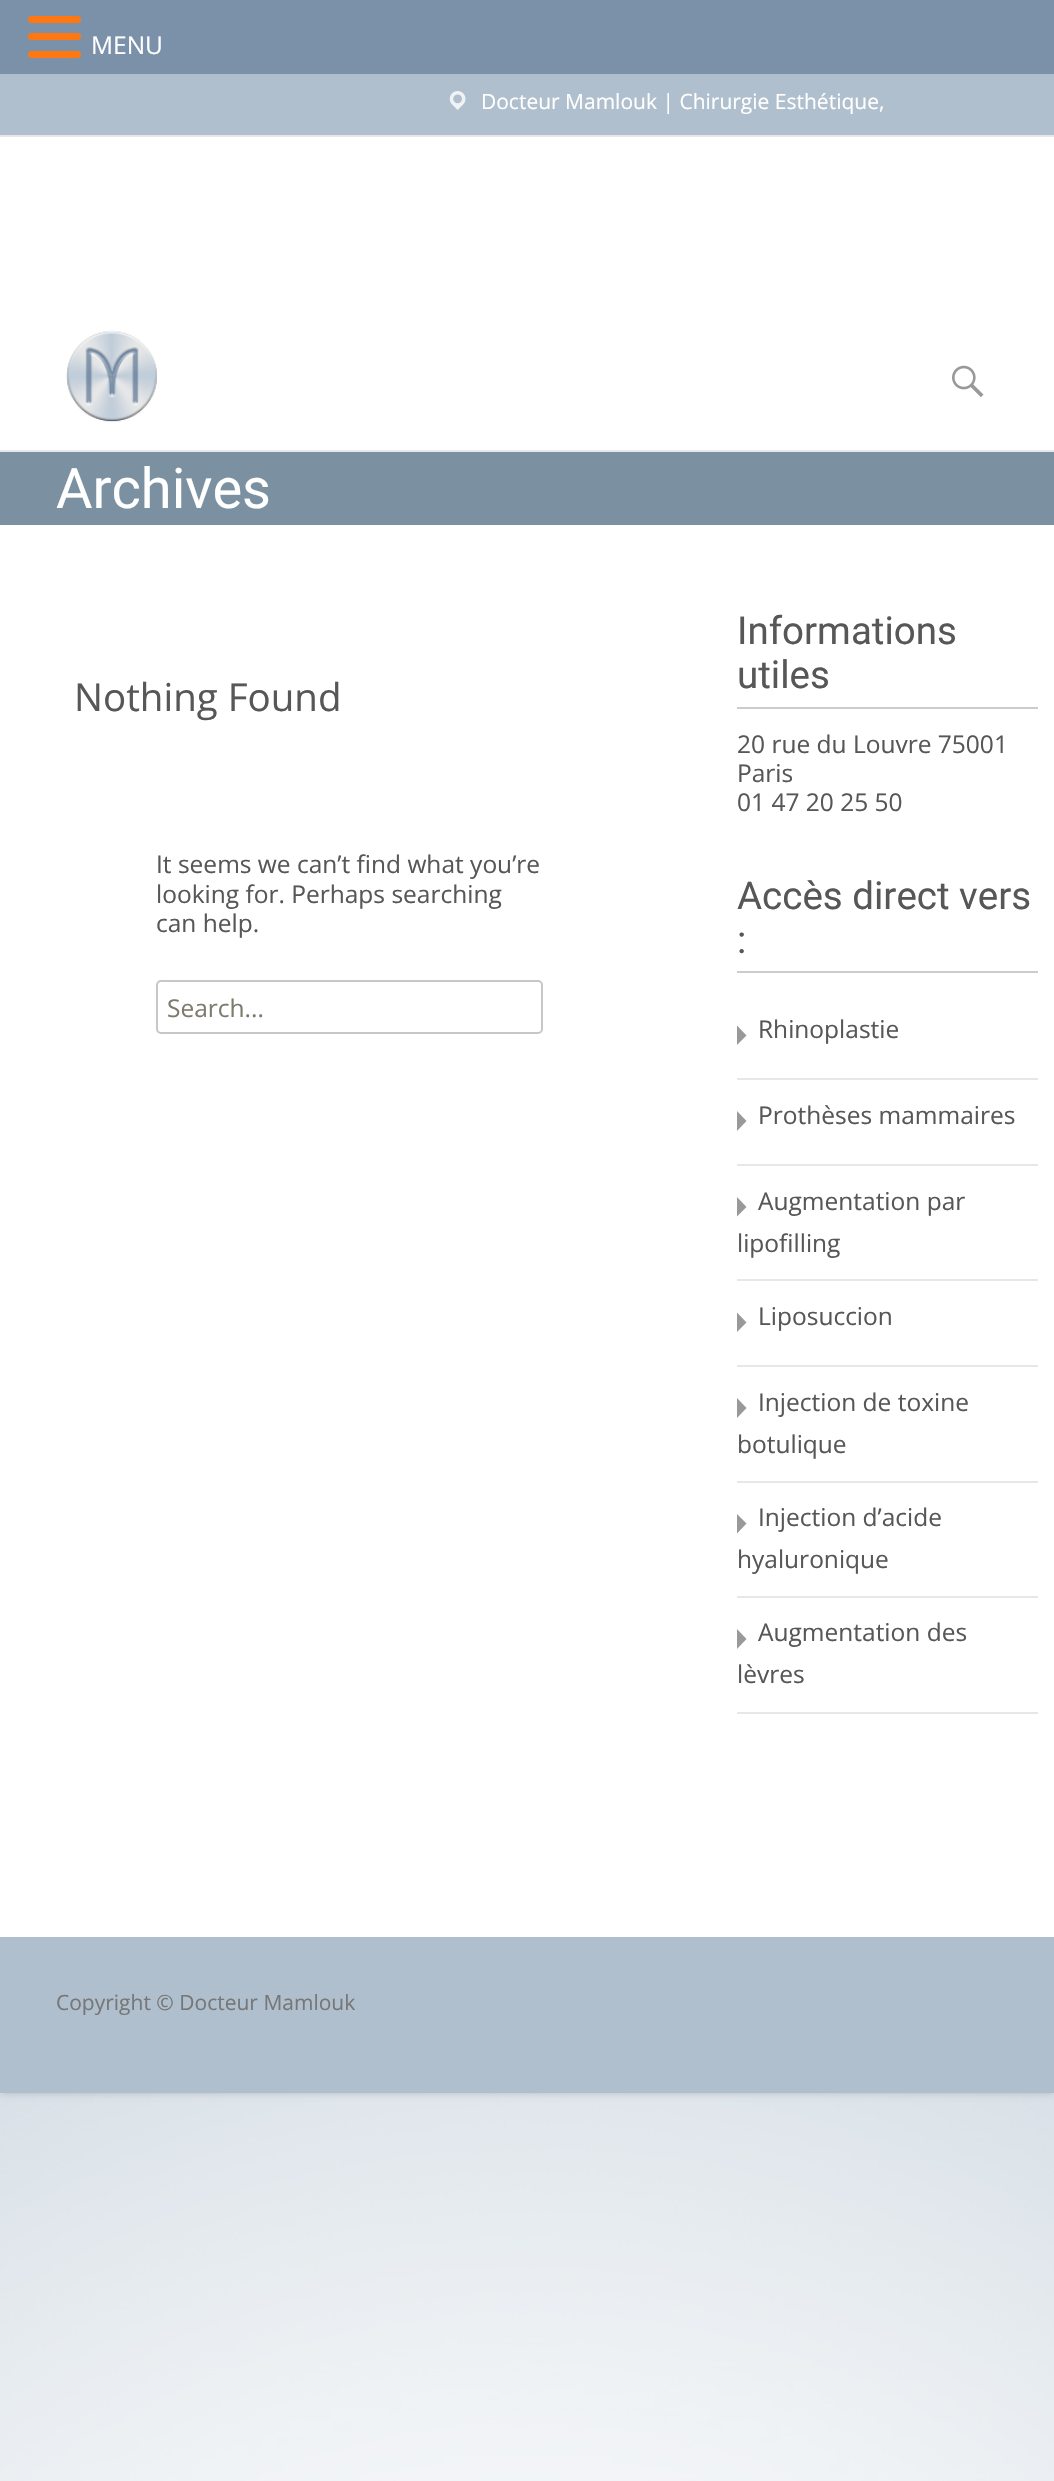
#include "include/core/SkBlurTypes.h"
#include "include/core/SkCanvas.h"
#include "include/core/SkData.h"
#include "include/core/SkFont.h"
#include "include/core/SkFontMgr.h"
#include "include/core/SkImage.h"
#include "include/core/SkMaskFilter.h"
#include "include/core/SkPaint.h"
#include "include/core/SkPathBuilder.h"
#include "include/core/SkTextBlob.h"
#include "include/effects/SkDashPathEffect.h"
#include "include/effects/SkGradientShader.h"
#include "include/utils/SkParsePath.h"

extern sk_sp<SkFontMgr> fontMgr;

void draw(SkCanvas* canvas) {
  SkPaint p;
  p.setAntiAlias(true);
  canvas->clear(SK_ColorWHITE);
  canvas->drawImageRect(SkImages::DeferredFromEncodedData(SkData::MakeFromFileName("images/1.png")), SkRect::MakeLTRB(0, 2093, 1054, 2481), SkSamplingOptions());
  p.setColor(SkColorSetARGB(26, 0, 0, 0));
  p.setMaskFilter(SkMaskFilter::MakeBlur(kNormal_SkBlurStyle, 3.5f));
  canvas->drawRoundRect(SkRect::MakeLTRB(0, 74, 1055, 2093), 4, 4, p);
  p.setMaskFilter(nullptr);
  p.setMaskFilter(SkMaskFilter::MakeBlur(kNormal_SkBlurStyle, 3.5f));
  canvas->drawRoundRect(SkRect::MakeLTRB(0, 74, 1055, 2093), 4, 4, p);
  p.setMaskFilter(nullptr);
  p.setColor(SkColorSetRGB(123, 145, 169));
  canvas->drawRect(SkRect::MakeLTRB(0, 0, 1054, 74), p);
  p.setColor(SkColorSetRGB(255, 119, 17));
  canvas->drawRoundRect(SkRect::MakeLTRB(28, 16, 81, 23), 3.5f, 3.5f, p);
  canvas->drawRoundRect(SkRect::MakeLTRB(28, 33, 81, 40), 3.5f, 3.5f, p);
  canvas->drawRoundRect(SkRect::MakeLTRB(28, 51, 81, 58), 3.5f, 3.5f, p);
  p.setColor(SK_ColorWHITE);
  canvas->drawRect(SkRect::MakeLTRB(0, 137, 1054, 1937), p);
  p.setColor(SkColorSetRGB(176, 191, 205));
  canvas->drawRect(SkRect::MakeLTRB(0, 74, 1054, 135), p);
  p.setColor(SkColorSetRGB(231, 231, 231));
  canvas->drawRect(SkRect::MakeLTRB(0, 135, 1054, 137), p);
  canvas->drawImageRect(SkImages::DeferredFromEncodedData(SkData::MakeFromFileName("images/2.png")), SkRect::MakeLTRB(449, 91, 466, 110), SkSamplingOptions());
  canvas->drawRect(SkRect::MakeLTRB(0, 450, 1054, 452), p);
  canvas->drawImageRect(SkImages::DeferredFromEncodedData(SkData::MakeFromFileName("images/3.png")), SkRect::MakeLTRB(66, 330, 157, 422), SkSamplingOptions());
  canvas->drawImageRect(SkImages::DeferredFromEncodedData(SkData::MakeFromFileName("images/4.png")), SkRect::MakeLTRB(952, 365, 984, 398), SkSamplingOptions());
  p.setColor(SkColorSetRGB(123, 145, 161));
  canvas->drawRect(SkRect::MakeLTRB(0, 452, 1054, 525), p);
  p.setStyle(SkPaint::kStroke_Style);
  p.setStrokeWidth(2);
  p.setColor(SkColorSetRGB(199, 199, 199));
  canvas->drawRoundRect(SkRect::MakeLTRB(157, 981, 542, 1033), 4, 4, p);
  p.setStyle(SkPaint::kFill_Style);
  p.setColor(SkColorSetRGB(204, 204, 204));
  canvas->drawRect(SkRect::MakeLTRB(737, 707, 1038, 709), p);
  canvas->drawRect(SkRect::MakeLTRB(737, 971, 1038, 973), p);
  p.setColor(SkColorSetRGB(231, 231, 231));
  canvas->drawRect(SkRect::MakeLTRB(737, 1078, 1038, 1080), p);
  p.setColor(SkColorSetRGB(153, 153, 153));
  canvas->drawPath(SkPathBuilder().moveTo(737, 1045).lineTo(737, 1025.5f).lineTo(746.5f, 1035.5f).close().detach(), p);
  p.setColor(SkColorSetRGB(231, 231, 231));
  canvas->drawRect(SkRect::MakeLTRB(737, 1164, 1038, 1166), p);
  p.setColor(SkColorSetRGB(153, 153, 153));
  canvas->drawPath(SkPathBuilder().moveTo(737, 1131).lineTo(737, 1111).lineTo(746.5f, 1121).close().detach(), p);
  p.setColor(SkColorSetRGB(231, 231, 231));
  canvas->drawRect(SkRect::MakeLTRB(737, 1279, 1038, 1281), p);
  p.setColor(SkColorSetRGB(153, 153, 153));
  canvas->drawPath(SkPathBuilder().moveTo(737, 1216.5f).lineTo(737, 1197).lineTo(746.5f, 1207).close().detach(), p);
  p.setColor(SkColorSetRGB(231, 231, 231));
  canvas->drawRect(SkRect::MakeLTRB(737, 1365, 1038, 1367), p);
  p.setColor(SkColorSetRGB(153, 153, 153));
  canvas->drawPath(SkPathBuilder().moveTo(737, 1332).lineTo(737, 1312.5f).lineTo(746.5f, 1322.5f).close().detach(), p);
  p.setColor(SkColorSetRGB(231, 231, 231));
  canvas->drawRect(SkRect::MakeLTRB(737, 1481, 1038, 1483), p);
  p.setColor(SkColorSetRGB(153, 153, 153));
  canvas->drawPath(SkPathBuilder().moveTo(737, 1418).lineTo(737, 1398).lineTo(746.5f, 1408).close().detach(), p);
  p.setColor(SkColorSetRGB(231, 231, 231));
  canvas->drawRect(SkRect::MakeLTRB(737, 1596, 1038, 1598), p);
  p.setColor(SkColorSetRGB(153, 153, 153));
  canvas->drawPath(SkPathBuilder().moveTo(737, 1533.5f).lineTo(737, 1514).lineTo(746.5f, 1523.5f).close().detach(), p);
  p.setColor(SkColorSetRGB(231, 231, 231));
  canvas->drawRect(SkRect::MakeLTRB(737, 1712, 1038, 1714), p);
  p.setColor(SkColorSetRGB(153, 153, 153));
  canvas->drawPath(SkPathBuilder().moveTo(737, 1649).lineTo(737, 1629).lineTo(746.5f, 1639).close().detach(), p);
  p.setColor(SkColorSetRGB(176, 191, 205));
  canvas->drawRect(SkRect::MakeLTRB(0, 1937, 1054, 2093), p);
  SkFont font1(fontMgr->matchFamilyStyle("Open Sans", SkFontStyle::Normal()), 24.5f);
  font1.setSubpixel(true);
  p.setColor(SK_ColorWHITE);
  canvas->drawString("MENU", 91, 54, font1, p);
  SkFont font2(fontMgr->matchFamilyStyle("Open Sans", SkFontStyle::Normal()), 21);
  font2.setSubpixel(true);
  canvas->drawString("Docteur Mamlouk | Chirurgie Esthétique,", 481, 109, font2, p);
  SkFont font3(fontMgr->matchFamilyStyle("Roboto", SkFontStyle::Normal()), 56);
  font3.setSubpixel(true);
  canvas->drawString("Archives", 56, 508, font3, p);
  SkFont font4(fontMgr->matchFamilyStyle("Open Sans", SkFontStyle::Normal()), 38.5f);
  font4.setSubpixel(true);
  p.setColor(SkColorSetRGB(87, 87, 87));
  canvas->drawString("Nothing Found", 74, 711, font4, p);
  canvas->drawString("It seems we can’t find what you’re", 156, 873, font1, p);
  canvas->drawString("looking for. Perhaps searching", 156, 903, font1, p);
  canvas->drawString("can help.", 156, 932, font1, p);
  p.setColor(SkColorSetRGB(125, 123, 109));
  canvas->drawString("Search...", 167, 1017, font1, p);
  SkFont font5(fontMgr->matchFamilyStyle("Roboto", SkFontStyle::Normal()), 38.5f);
  font5.setSubpixel(true);
  p.setColor(SkColorSetRGB(87, 87, 87));
  canvas->drawString("Informations", 737, 644, font5, p);
  canvas->drawString("utiles", 737, 688, font5, p);
  canvas->drawString("20 rue du Louvre 75001", 737, 753, font1, p);
  canvas->drawString("Paris", 737, 782, font1, p);
  canvas->drawString("01 47 20 25 50", 737, 811, font1, p);
  canvas->drawString("Accès direct vers", 737, 909, font5, p);
  canvas->drawString(":", 737, 953, font5, p);
  canvas->drawString("Rhinoplastie", 758, 1038, font1, p);
  canvas->drawString("Prothèses mammaires", 758, 1124, font1, p);
  canvas->drawString("Augmentation par", 758, 1210, font1, p);
  canvas->drawString("lipofilling", 737, 1252, font1, p);
  canvas->drawString("Liposuccion", 758, 1325, font1, p);
  canvas->drawString("Injection de toxine", 758, 1411, font1, p);
  canvas->drawString("botulique", 737, 1453, font1, p);
  canvas->drawString("Injection d’acide", 758, 1526, font1, p);
  canvas->drawString("hyaluronique", 737, 1568, font1, p);
  canvas->drawString("Augmentation des", 758, 1641, font1, p);
  canvas->drawString("lèvres", 737, 1683, font1, p);
  p.setColor(SkColorSetRGB(119, 119, 119));
  canvas->drawString("Copyright © Docteur Mamlouk", 56, 2010, font2, p);
}
